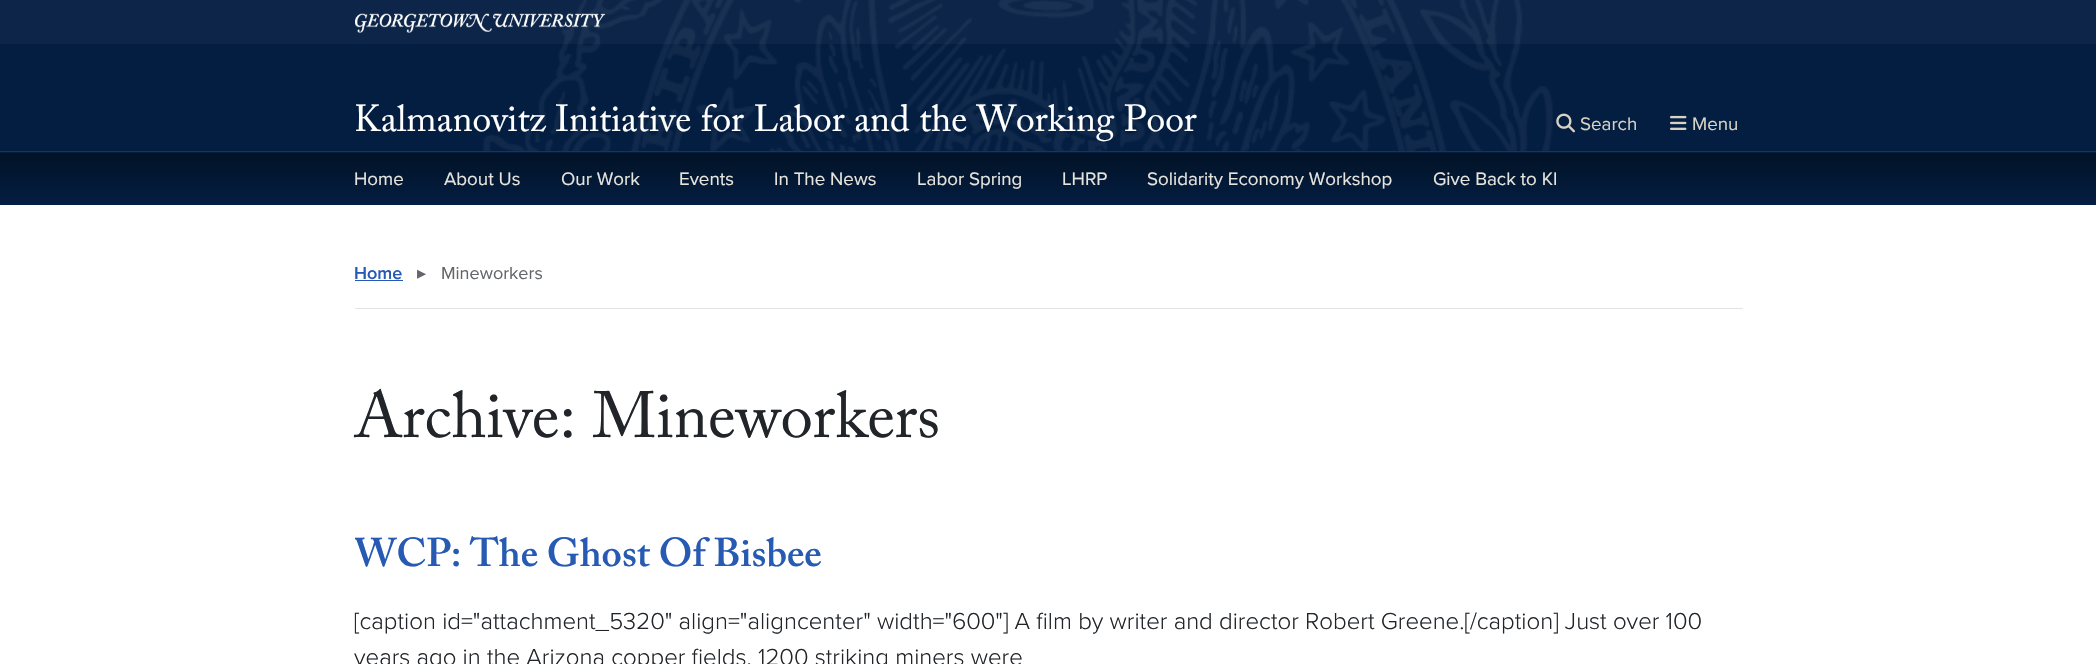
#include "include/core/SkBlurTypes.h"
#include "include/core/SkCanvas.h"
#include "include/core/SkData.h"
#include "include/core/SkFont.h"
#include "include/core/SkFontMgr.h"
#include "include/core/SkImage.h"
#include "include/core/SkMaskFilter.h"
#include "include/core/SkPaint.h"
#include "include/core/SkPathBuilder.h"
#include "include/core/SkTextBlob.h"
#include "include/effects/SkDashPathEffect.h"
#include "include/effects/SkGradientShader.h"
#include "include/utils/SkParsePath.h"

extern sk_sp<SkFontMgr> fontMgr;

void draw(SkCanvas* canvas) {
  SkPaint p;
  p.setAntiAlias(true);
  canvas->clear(SK_ColorWHITE);
  p.setColor(SkColorSetRGB(4, 30, 66));
  canvas->drawRect(SkRect::MakeLTRB(0, 0, 2096, 151), p);
  canvas->drawImageRect(SkImages::DeferredFromEncodedData(SkData::MakeFromFileName("images/1.png")), SkRect::MakeLTRB(483, 0, 1553, 151), SkSamplingOptions());
  p.setColor(SkColorSetARGB(8, 255, 255, 255));
  canvas->drawRect(SkRect::MakeLTRB(0, 0, 2096, 44), p);
  canvas->drawImageRect(SkImages::DeferredFromEncodedData(SkData::MakeFromFileName("images/2.png")), SkRect::MakeLTRB(355, 13, 605, 33), SkSamplingOptions());
  canvas->drawImageRect(SkImages::DeferredFromEncodedData(SkData::MakeFromFileName("images/3.png")), SkRect::MakeLTRB(1556, 113, 1575, 133), SkSamplingOptions());
  canvas->drawImageRect(SkImages::DeferredFromEncodedData(SkData::MakeFromFileName("images/4.png")), SkRect::MakeLTRB(1670, 115, 1687, 130), SkSamplingOptions());
  {
    const SkColor colors[] = {SkColorSetRGB(1, 18, 37), SkColorSetRGB(4, 30, 66)};
    const float stops[] = {0, 1};
    const SkPoint ends[] = {{1048, 100}, {1048, 153}};
    p.setShader(SkGradientShader::MakeLinear(ends, colors, stops, 2, SkTileMode::kClamp));
    p.setAlpha(255);
  }
  canvas->drawRect(SkRect::MakeLTRB(0, 152, 2096, 153), p);
  {
    const SkColor colors[] = {SkColorSetRGB(1, 18, 37), SkColorSetRGB(4, 30, 66)};
    const float stops[] = {0, 1};
    const SkPoint ends[] = {{1048, 152}, {1048, 205}};
    p.setShader(SkGradientShader::MakeLinear(ends, colors, stops, 2, SkTileMode::kClamp));
    p.setAlpha(255);
  }
  canvas->drawRect(SkRect::MakeLTRB(0, 153, 2096, 205), p);
  p.setShader(nullptr);
  p.setColor(SkColorSetRGB(29, 53, 84));
  canvas->drawRect(SkRect::MakeLTRB(0, 151, 2096, 152), p);
  p.setColor(SkColorSetRGB(228, 228, 228));
  canvas->drawRect(SkRect::MakeLTRB(355, 308, 1743, 309), p);
  p.setColor(SkColorSetRGB(38, 90, 179));
  canvas->drawRect(SkRect::MakeLTRB(355, 280, 403, 281), p);
  SkFont font1(fontMgr->matchFamilyStyle("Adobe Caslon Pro", SkFontStyle::Normal()), 37.5f);
  font1.setSubpixel(true);
  p.setColor(SK_ColorWHITE);
  canvas->drawString("Kalmanovitz Initiative for Labor and the Working Poor", 354, 131, font1, p);
  SkFont font2(fontMgr->matchFamilyStyle("Proxima Nova", SkFontStyle::Normal()), 18.75f);
  font2.setSubpixel(true);
  p.setColor(SkColorSetRGB(214, 210, 196));
  canvas->drawString("Search", 1580, 130, font2, p);
  canvas->drawString("Menu", 1692, 130, font2, p);
  p.setColor(SkColorSetRGB(230, 228, 220));
  canvas->drawString("Home", 354, 185, font2, p);
  canvas->drawString("About Us", 444, 185, font2, p);
  canvas->drawString("Our Work", 561, 185, font2, p);
  canvas->drawString("Events", 679, 185, font2, p);
  canvas->drawString("In The News", 774, 185, font2, p);
  canvas->drawString("Labor Spring", 917, 185, font2, p);
  canvas->drawString("LHRP", 1062, 185, font2, p);
  canvas->drawString("Solidarity Economy Workshop", 1147, 185, font2, p);
  canvas->drawString("Give Back to KI", 1433, 185, font2, p);
  SkFont font3(fontMgr->matchFamilyStyle("Proxima Nova", SkFontStyle(600, SkFontStyle::kNormal_Width, SkFontStyle::kUpright_Slant)), 18);
  font3.setSubpixel(true);
  p.setColor(SkColorSetRGB(38, 90, 179));
  canvas->drawString("Home", 354, 279, font3, p);
  SkFont font4(fontMgr->matchFamilyStyle("DejaVu Sans", SkFontStyle::Normal()), 18);
  font4.setSubpixel(true);
  p.setColor(SkColorSetRGB(99, 102, 106));
  canvas->drawString("▸", 417, 279, font4, p);
  SkFont font5(fontMgr->matchFamilyStyle("Proxima Nova", SkFontStyle::Normal()), 18);
  font5.setSubpixel(true);
  canvas->drawString("Mineworkers", 441, 279, font5, p);
  SkFont font6(fontMgr->matchFamilyStyle("Adobe Caslon Pro", SkFontStyle::Normal()), 65);
  font6.setSubpixel(true);
  p.setColor(SkColorSetRGB(33, 37, 41));
  canvas->drawString("Archive: Mineworkers", 354, 437, font6, p);
  canvas->save();
  canvas->clipRect(SkRect::MakeLTRB(355, 476, 1743, 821));
  SkFont font7(fontMgr->matchFamilyStyle("Adobe Caslon Pro", SkFontStyle(600, SkFontStyle::kNormal_Width, SkFontStyle::kUpright_Slant)), 40);
  font7.setSubpixel(true);
  p.setColor(SkColorSetRGB(38, 90, 179));
  canvas->drawString("WCP: The Ghost Of Bisbee", 354, 566, font7, p);
  canvas->restore();
  SkFont font8(fontMgr->matchFamilyStyle("Proxima Nova", SkFontStyle(300, SkFontStyle::kNormal_Width, SkFontStyle::kUpright_Slant)), 24);
  font8.setSubpixel(true);
  p.setColor(SkColorSetRGB(33, 37, 41));
  canvas->drawString("[caption id=\"attachment_5320\" align=\"aligncenter\" width=\"600\"] A film by writer and director Robert Greene.[/caption] Just over 100", 354, 629, font8, p);
  canvas->drawString("years ago in the Arizona copper fields, 1200 striking miners were", 354, 665, font8, p);
}
